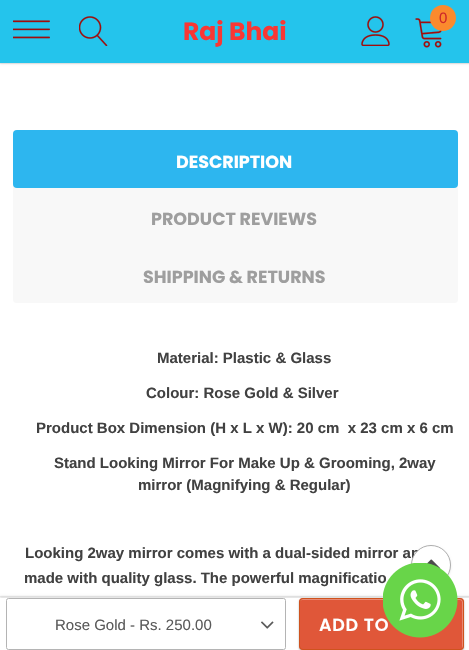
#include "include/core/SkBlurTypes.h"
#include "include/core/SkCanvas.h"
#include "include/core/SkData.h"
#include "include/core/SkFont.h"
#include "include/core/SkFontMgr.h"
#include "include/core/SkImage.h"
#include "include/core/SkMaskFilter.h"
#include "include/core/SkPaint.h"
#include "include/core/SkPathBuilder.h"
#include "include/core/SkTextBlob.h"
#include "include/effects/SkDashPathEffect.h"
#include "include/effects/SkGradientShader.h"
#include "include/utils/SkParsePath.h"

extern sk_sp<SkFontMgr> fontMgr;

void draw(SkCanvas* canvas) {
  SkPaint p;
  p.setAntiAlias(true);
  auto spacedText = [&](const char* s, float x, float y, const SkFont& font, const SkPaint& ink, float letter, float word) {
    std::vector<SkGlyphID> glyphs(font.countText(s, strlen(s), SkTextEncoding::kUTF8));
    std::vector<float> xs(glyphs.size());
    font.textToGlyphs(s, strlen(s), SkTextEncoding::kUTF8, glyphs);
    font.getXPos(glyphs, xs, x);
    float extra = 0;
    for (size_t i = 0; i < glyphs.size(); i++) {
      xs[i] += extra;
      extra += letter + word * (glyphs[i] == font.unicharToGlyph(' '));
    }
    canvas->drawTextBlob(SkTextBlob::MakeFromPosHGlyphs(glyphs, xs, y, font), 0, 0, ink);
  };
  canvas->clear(SK_ColorWHITE);
  p.setColor(SkColorSetARGB(26, 0, 0, 0));
  p.setMaskFilter(SkMaskFilter::MakeBlur(kNormal_SkBlurStyle, 1));
  canvas->drawRect(SkRect::MakeLTRB(0, 1, 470, 64), p);
  p.setMaskFilter(nullptr);
  p.setStyle(SkPaint::kStroke_Style);
  p.setStrokeWidth(1);
  p.setColor(SkColorSetARGB(15, 0, 0, 0));
  canvas->drawRect(SkRect::MakeLTRB(-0.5f, -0.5f, 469.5f, 63.5f), p);
  p.setStyle(SkPaint::kFill_Style);
  p.setColor(SkColorSetRGB(36, 196, 236));
  canvas->drawRect(SkRect::MakeLTRB(0, 0, 469, 63), p);
  canvas->drawImageRect(SkImages::DeferredFromEncodedData(SkData::MakeFromFileName("images/1.png")), SkRect::MakeLTRB(13, 20, 50, 39), SkSamplingOptions());
  canvas->drawImageRect(SkImages::DeferredFromEncodedData(SkData::MakeFromFileName("images/2.png")), SkRect::MakeLTRB(79, 16, 108, 46), SkSamplingOptions());
  canvas->drawImageRect(SkImages::DeferredFromEncodedData(SkData::MakeFromFileName("images/3.png")), SkRect::MakeLTRB(361, 16, 390, 46), SkSamplingOptions());
  canvas->drawImageRect(SkImages::DeferredFromEncodedData(SkData::MakeFromFileName("images/4.png")), SkRect::MakeLTRB(415, 18, 442, 48), SkSamplingOptions());
  p.setColor(SkColorSetRGB(251, 138, 45));
  canvas->drawCircle(443, 18, 13, p);
  p.setColor(SkColorSetRGB(248, 248, 248));
  canvas->drawRoundRect(SkRect::MakeLTRB(13, 130, 458, 303), 4, 4, p);
  p.setColor(SkColorSetRGB(45, 182, 239));
  canvas->drawRoundRect(SkRect::MakeLTRB(13, 130, 458, 188), 4, 4, p);
  p.setColor(SkColorSetARGB(26, 0, 0, 0));
  p.setMaskFilter(SkMaskFilter::MakeBlur(kNormal_SkBlurStyle, 1));
  canvas->drawRect(SkRect::MakeLTRB(0, 596, 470, 649), p);
  p.setMaskFilter(nullptr);
  p.setStyle(SkPaint::kStroke_Style);
  p.setColor(SkColorSetARGB(15, 0, 0, 0));
  canvas->drawRect(SkRect::MakeLTRB(-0.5f, 596.5f, 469.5f, 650.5f), p);
  p.setStyle(SkPaint::kFill_Style);
  p.setColor(SK_ColorWHITE);
  canvas->drawRect(SkRect::MakeLTRB(0, 598, 469, 650), p);
  p.setStyle(SkPaint::kStroke_Style);
  p.setColor(SkColorSetRGB(180, 180, 180));
  canvas->drawRoundRect(SkRect::MakeLTRB(6.5f, 598.5f, 285.5f, 649.5f), 2, 2, p);
  canvas->drawImageRect(SkImages::DeferredFromEncodedData(SkData::MakeFromFileName("images/5.png")), SkRect::MakeLTRB(261, 621, 274, 629), SkSamplingOptions());
  p.setStyle(SkPaint::kFill_Style);
  p.setColor(SkColorSetARGB(77, 0, 0, 0));
  p.setMaskFilter(SkMaskFilter::MakeBlur(kNormal_SkBlurStyle, 1));
  canvas->drawRoundRect(SkRect::MakeLTRB(299, 599, 464, 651), 4, 4, p);
  p.setMaskFilter(nullptr);
  p.setColor(SkColorSetRGB(224, 87, 57));
  canvas->drawRoundRect(SkRect::MakeLTRB(299, 598, 464, 650), 4, 4, p);
  p.setColor(SkColorSetRGB(233, 137, 116));
  canvas->drawPath(SkPathBuilder().moveTo(302, 600).lineTo(460, 600).cubicTo(461, 600, 462, 601, 462, 602).lineTo(462, 649).cubicTo(463, 648, 463, 647, 463, 646).lineTo(463, 602).cubicTo(463, 600, 462, 599, 460, 599).lineTo(302, 599).cubicTo(301, 599, 300, 600, 300, 602).cubicTo(300, 601, 301, 600, 302, 600).close().detach(), p);
  p.setStyle(SkPaint::kStroke_Style);
  p.setColor(SkColorSetRGB(206, 83, 30));
  canvas->drawRoundRect(SkRect::MakeLTRB(299.5f, 598.5f, 463.5f, 649.5f), 3.5f, 3.5f, p);
  p.setStyle(SkPaint::kFill_Style);
  p.setColor(SkColorSetARGB(26, 0, 0, 0));
  p.setMaskFilter(SkMaskFilter::MakeBlur(kNormal_SkBlurStyle, 1));
  canvas->drawRoundRect(SkRect::MakeLTRB(411, 546, 451, 586), 20, 20, p);
  p.setMaskFilter(nullptr);
  SkFont font1(fontMgr->matchFamilyStyle("Poppins", SkFontStyle::Bold()), 25);
  font1.setSubpixel(true);
  p.setColor(SkColorSetRGB(248, 55, 52));
  canvas->drawString("Raj Bhai", 183, 40, font1, p);
  SkFont font2(fontMgr->matchFamilyStyle("Arimo", SkFontStyle::Normal()), 15);
  font2.setSubpixel(true);
  p.setColor(SkColorSetRGB(206, 40, 40));
  canvas->drawString("0", 439, 23, font2, p);
  SkFont font3(fontMgr->matchFamilyStyle("Poppins", SkFontStyle::Bold()), 17.5f);
  font3.setSubpixel(true);
  p.setColor(SK_ColorWHITE);
  canvas->drawString("DESCRIPTION", 176, 168, font3, p);
  p.setColor(SkColorSetRGB(158, 158, 158));
  canvas->drawString("PRODUCT REVIEWS", 151, 225, font3, p);
  canvas->drawString("SHIPPING & RETURNS", 143, 283, font3, p);
  SkFont font4(fontMgr->matchFamilyStyle("Arimo", SkFontStyle::Bold()), 15);
  font4.setSubpixel(true);
  p.setColor(SkColorSetRGB(65, 65, 65));
  canvas->drawString("Material: Plastic & Glass", 157, 363, font4, p);
  canvas->drawString("Colour: Rose Gold & Silver", 146, 398, font4, p);
  canvas->drawString("Product Box Dimension (H x L x W): 20 cm  x 23 cm x 6 cm", 36, 433, font4, p);
  canvas->drawString("Stand Looking Mirror For Make Up & Grooming, 2way", 54, 468, font4, p);
  canvas->drawString("mirror (Magnifying & Regular)", 138, 490, font4, p);
  canvas->drawString("Looking 2way mirror comes with a dual-sided mirror an", 25, 558, font4, p);
  canvas->drawString("made with quality glass. The powerful magnificatio", 24, 583, font4, p);
  p.setColor(SkColorSetRGB(90, 90, 90));
  canvas->drawString("Rose Gold - Rs. 250.00", 55, 630, font2, p);
  SkFont font5(fontMgr->matchFamilyStyle("Poppins", SkFontStyle(600, SkFontStyle::kNormal_Width, SkFontStyle::kUpright_Slant)), 17.5f);
  font5.setSubpixel(true);
  p.setColor(SK_ColorWHITE);
  spacedText("ADD TO", 319, 631, font5, p, 0.75f, 0);
  canvas->drawCircle(431, 565, 19.5f, p);
  p.setStyle(SkPaint::kStroke_Style);
  p.setColor(SkColorSetRGB(174, 174, 174));
  canvas->drawCircle(431, 565, 19.5f, p);
  canvas->drawImageRect(SkImages::DeferredFromEncodedData(SkData::MakeFromFileName("images/6.png")), SkRect::MakeLTRB(426, 559, 441, 569), SkSamplingOptions());
  canvas->drawImageRect(SkImages::DeferredFromEncodedData(SkData::MakeFromFileName("images/7.png")), SkRect::MakeLTRB(383, 563, 458, 638), SkSamplingOptions());
}
